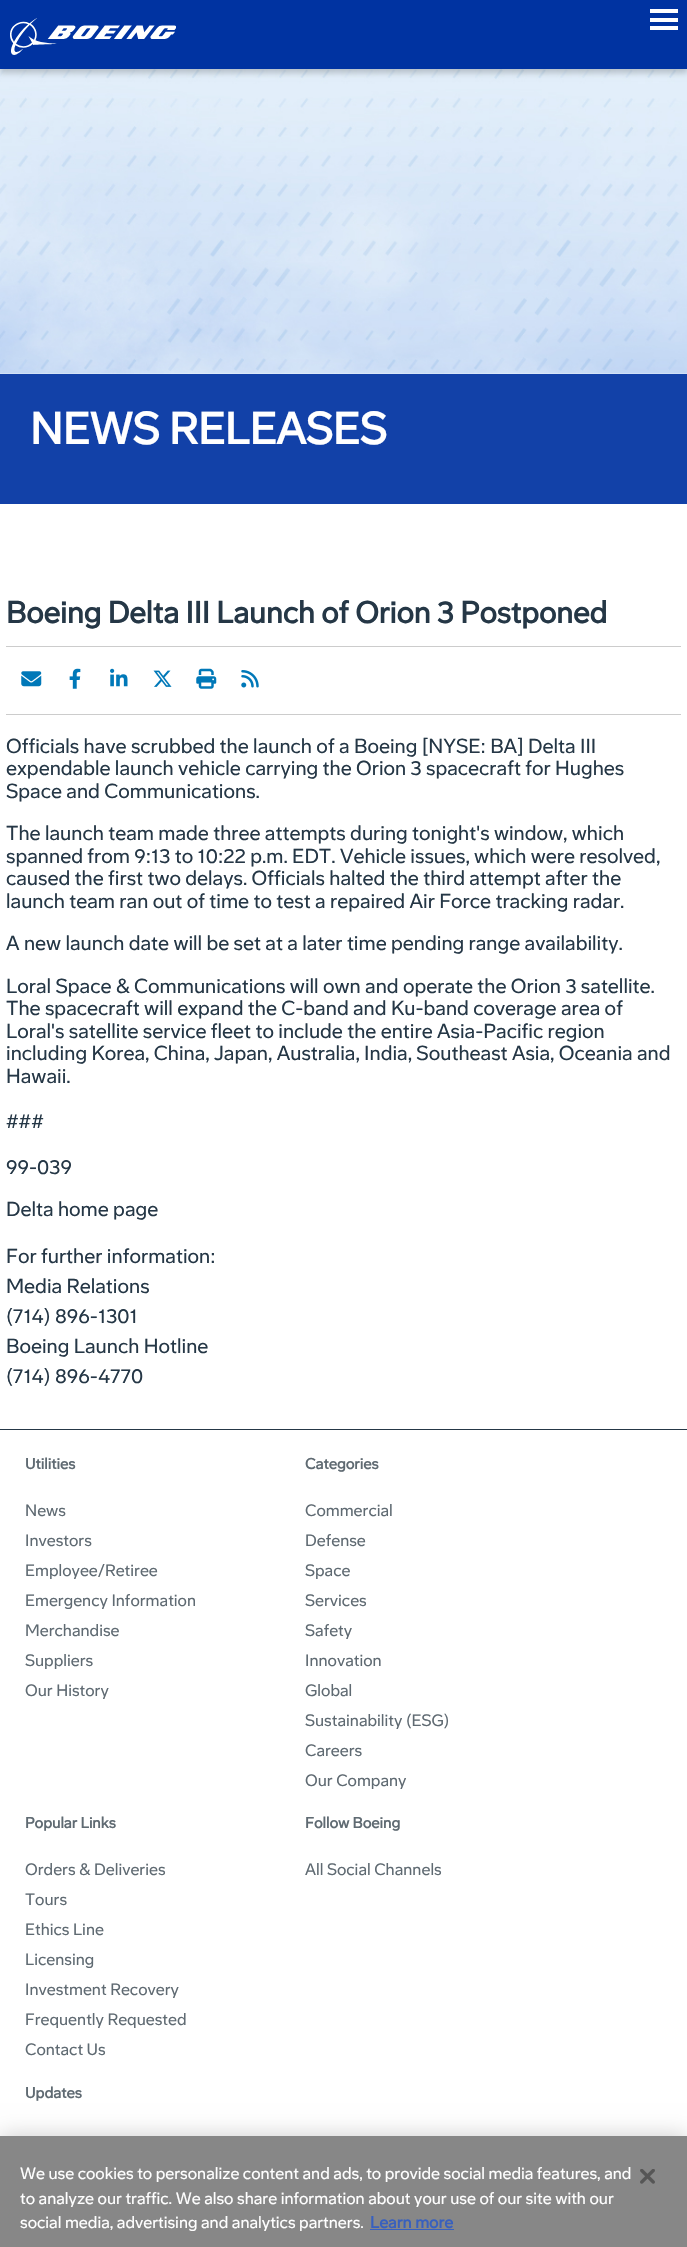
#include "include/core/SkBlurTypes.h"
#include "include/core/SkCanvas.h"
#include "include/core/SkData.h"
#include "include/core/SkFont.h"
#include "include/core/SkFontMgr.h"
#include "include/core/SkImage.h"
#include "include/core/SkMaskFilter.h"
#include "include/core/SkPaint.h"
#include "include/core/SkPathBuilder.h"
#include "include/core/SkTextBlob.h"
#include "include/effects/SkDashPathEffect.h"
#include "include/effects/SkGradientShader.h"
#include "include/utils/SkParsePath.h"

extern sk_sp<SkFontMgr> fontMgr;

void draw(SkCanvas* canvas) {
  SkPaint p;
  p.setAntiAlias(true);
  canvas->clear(SK_ColorWHITE);
  canvas->drawImageRect(SkImages::DeferredFromEncodedData(SkData::MakeFromFileName("images/2.png")), SkRect::MakeLTRB(0, 69, 687, 374), SkSamplingOptions());
  p.setColor(SkColorSetARGB(51, 0, 0, 0));
  p.setMaskFilter(SkMaskFilter::MakeBlur(kNormal_SkBlurStyle, 3));
  canvas->drawRect(SkRect::MakeLTRB(0, 4, 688, 73), p);
  p.setMaskFilter(nullptr);
  p.setColor(SkColorSetRGB(0, 51, 161));
  canvas->drawRect(SkRect::MakeLTRB(0, 0, 687, 69), p);
  canvas->drawImageRect(SkImages::DeferredFromEncodedData(SkData::MakeFromFileName("images/1.png")), SkRect::MakeLTRB(10, 18, 176, 55), SkSamplingOptions());
  p.setColor(SK_ColorWHITE);
  canvas->drawRect(SkRect::MakeLTRB(650, 18, 678, 22), p);
  canvas->drawRect(SkRect::MakeLTRB(650, 9, 678, 13), p);
  canvas->drawRect(SkRect::MakeLTRB(650, 26, 678, 30), p);
  p.setColor(SkColorSetRGB(18, 65, 168));
  canvas->drawRect(SkRect::MakeLTRB(0, 374, 687, 504), p);
  p.setColor(SkColorSetRGB(204, 204, 204));
  canvas->drawRect(SkRect::MakeLTRB(6, 646, 681, 647), p);
  canvas->drawRect(SkRect::MakeLTRB(6, 714, 681, 715), p);
  canvas->drawImageRect(SkImages::DeferredFromEncodedData(SkData::MakeFromFileName("images/3.png")), SkRect::MakeLTRB(21, 671, 42, 687), SkSamplingOptions());
  canvas->drawImageRect(SkImages::DeferredFromEncodedData(SkData::MakeFromFileName("images/4.png")), SkRect::MakeLTRB(69, 668, 81, 689), SkSamplingOptions());
  canvas->drawImageRect(SkImages::DeferredFromEncodedData(SkData::MakeFromFileName("images/5.png")), SkRect::MakeLTRB(110, 668, 128, 687), SkSamplingOptions());
  canvas->drawImageRect(SkImages::DeferredFromEncodedData(SkData::MakeFromFileName("images/6.png")), SkRect::MakeLTRB(153, 670, 172, 687), SkSamplingOptions());
  canvas->drawImageRect(SkImages::DeferredFromEncodedData(SkData::MakeFromFileName("images/7.png")), SkRect::MakeLTRB(196, 668, 217, 689), SkSamplingOptions());
  canvas->drawImageRect(SkImages::DeferredFromEncodedData(SkData::MakeFromFileName("images/8.png")), SkRect::MakeLTRB(241, 670, 259, 688), SkSamplingOptions());
  p.setColor(SkColorSetRGB(37, 55, 70));
  canvas->drawRect(SkRect::MakeLTRB(0, 1429, 687, 1430), p);
  p.setColor(SkColorSetARGB(51, 0, 0, 0));
  p.setMaskFilter(SkMaskFilter::MakeBlur(kNormal_SkBlurStyle, 11));
  canvas->drawRect(SkRect::MakeLTRB(0, 2136, 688, 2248), p);
  p.setMaskFilter(nullptr);
  p.setColor(SkColorSetRGB(135, 135, 135));
  canvas->drawRect(SkRect::MakeLTRB(0, 2136, 687, 2247), p);
  p.setColor(SkColorSetRGB(56, 96, 190));
  canvas->drawRect(SkRect::MakeLTRB(370, 2229, 454, 2230), p);
  canvas->drawImageRect(SkImages::DeferredFromEncodedData(SkData::MakeFromFileName("images/9.png")), SkRect::MakeLTRB(640, 2169, 655, 2184), SkSamplingOptions());
  SkFont font1(fontMgr->matchFamilyStyle("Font", SkFontStyle::Bold()), 43.75f);
  font1.setSubpixel(true);
  p.setColor(SK_ColorWHITE);
  canvas->drawString("NEWS RELEASES", 30, 444, font1, p);
  SkFont font2(fontMgr->matchFamilyStyle("Font", SkFontStyle::Bold()), 30);
  font2.setSubpixel(true);
  p.setColor(SkColorSetRGB(37, 55, 70));
  canvas->drawString("Boeing Delta III Launch of Orion 3 Postponed", 6, 623, font2, p);
  SkFont font3(fontMgr->matchFamilyStyle("Font", SkFontStyle::Normal()), 20);
  font3.setSubpixel(true);
  canvas->drawString("Officials have scrubbed the launch of a Boeing [NYSE: BA] Delta III", 6, 753, font3, p);
  canvas->drawString("expendable launch vehicle carrying the Orion 3 spacecraft for Hughes", 6, 775, font3, p);
  canvas->drawString("Space and Communications.", 6, 798, font3, p);
  canvas->drawString("The launch team made three attempts during tonight's window, which", 6, 840, font3, p);
  canvas->drawString("spanned from 9:13 to 10:22 p.m. EDT. Vehicle issues, which were resolved,", 6, 863, font3, p);
  canvas->drawString("caused the first two delays. Officials halted the third attempt after the", 6, 885, font3, p);
  canvas->drawString("launch team ran out of time to test a repaired Air Force tracking radar.", 6, 908, font3, p);
  canvas->drawString("A new launch date will be set at a later time pending range availability.", 6, 950, font3, p);
  canvas->drawString("Loral Space & Communications will own and operate the Orion 3 satellite.", 6, 993, font3, p);
  canvas->drawString("The spacecraft will expand the C-band and Ku-band coverage area of", 6, 1015, font3, p);
  canvas->drawString("Loral's satellite service fleet to include the entire Asia-Pacific region", 6, 1038, font3, p);
  canvas->drawString("including Korea, China, Japan, Australia, India, Southeast Asia, Oceania and", 6, 1060, font3, p);
  canvas->drawString("Hawaii.", 6, 1083, font3, p);
  canvas->drawString("###", 6, 1128, font3, p);
  canvas->drawString("99-039", 6, 1174, font3, p);
  canvas->drawString("Delta home page", 6, 1216, font3, p);
  canvas->drawString("For further information:", 6, 1263, font3, p);
  canvas->drawString("Media Relations", 6, 1293, font3, p);
  canvas->drawString("(714) 896-1301", 6, 1323, font3, p);
  canvas->drawString("Boeing Launch Hotline", 6, 1353, font3, p);
  canvas->drawString("(714) 896-4770", 6, 1383, font3, p);
  SkFont font4(fontMgr->matchFamilyStyle("Font", SkFontStyle::Bold()), 15);
  font4.setSubpixel(true);
  p.setColor(SkColorSetRGB(95, 106, 114));
  canvas->drawString("Utilities", 25, 1469, font4, p);
  SkFont font5(fontMgr->matchFamilyStyle("Font", SkFontStyle::Normal()), 16.25f);
  font5.setSubpixel(true);
  canvas->drawString("News", 25, 1516, font5, p);
  canvas->drawString("Investors", 25, 1546, font5, p);
  canvas->drawString("Employee/Retiree", 25, 1576, font5, p);
  canvas->drawString("Emergency Information", 25, 1606, font5, p);
  canvas->drawString("Merchandise", 25, 1636, font5, p);
  canvas->drawString("Suppliers", 25, 1666, font5, p);
  canvas->drawString("Our History", 25, 1696, font5, p);
  canvas->drawString("Categories", 305, 1469, font4, p);
  canvas->drawString("Commercial", 305, 1516, font5, p);
  canvas->drawString("Defense", 305, 1546, font5, p);
  canvas->drawString("Space", 305, 1576, font5, p);
  canvas->drawString("Services", 305, 1606, font5, p);
  canvas->drawString("Safety", 305, 1636, font5, p);
  canvas->drawString("Innovation", 305, 1666, font5, p);
  canvas->drawString("Global", 305, 1696, font5, p);
  canvas->drawString("Sustainability (ESG)", 305, 1726, font5, p);
  canvas->drawString("Careers", 305, 1756, font5, p);
  canvas->drawString("Our Company", 305, 1786, font5, p);
  canvas->drawString("Popular Links", 25, 1828, font4, p);
  canvas->drawString("Orders & Deliveries", 25, 1875, font5, p);
  canvas->drawString("Tours", 25, 1905, font5, p);
  canvas->drawString("Ethics Line", 25, 1935, font5, p);
  canvas->drawString("Licensing", 25, 1965, font5, p);
  canvas->drawString("Investment Recovery", 25, 1995, font5, p);
  canvas->drawString("Frequently Requested", 25, 2025, font5, p);
  canvas->drawString("Contact Us", 25, 2055, font5, p);
  canvas->drawString("Follow Boeing", 305, 1828, font4, p);
  canvas->drawString("All Social Channels", 305, 1875, font5, p);
  canvas->drawString("Updates", 25, 2098, font4, p);
  p.setColor(SK_ColorWHITE);
  canvas->drawString("We use cookies to personalize content and ads, to provide social media features, and", 20, 2179, font5, p);
  canvas->drawString("to analyze our traffic. We also share information about your use of our site with our", 20, 2204, font5, p);
  canvas->drawString("social media, advertising and analytics partners.", 20, 2228, font5, p);
  SkFont font6(fontMgr->matchFamilyStyle("Font", SkFontStyle::Bold()), 16.25f);
  font6.setSubpixel(true);
  p.setColor(SkColorSetRGB(56, 96, 190));
  canvas->drawString("Learn more", 370, 2228, font6, p);
}
